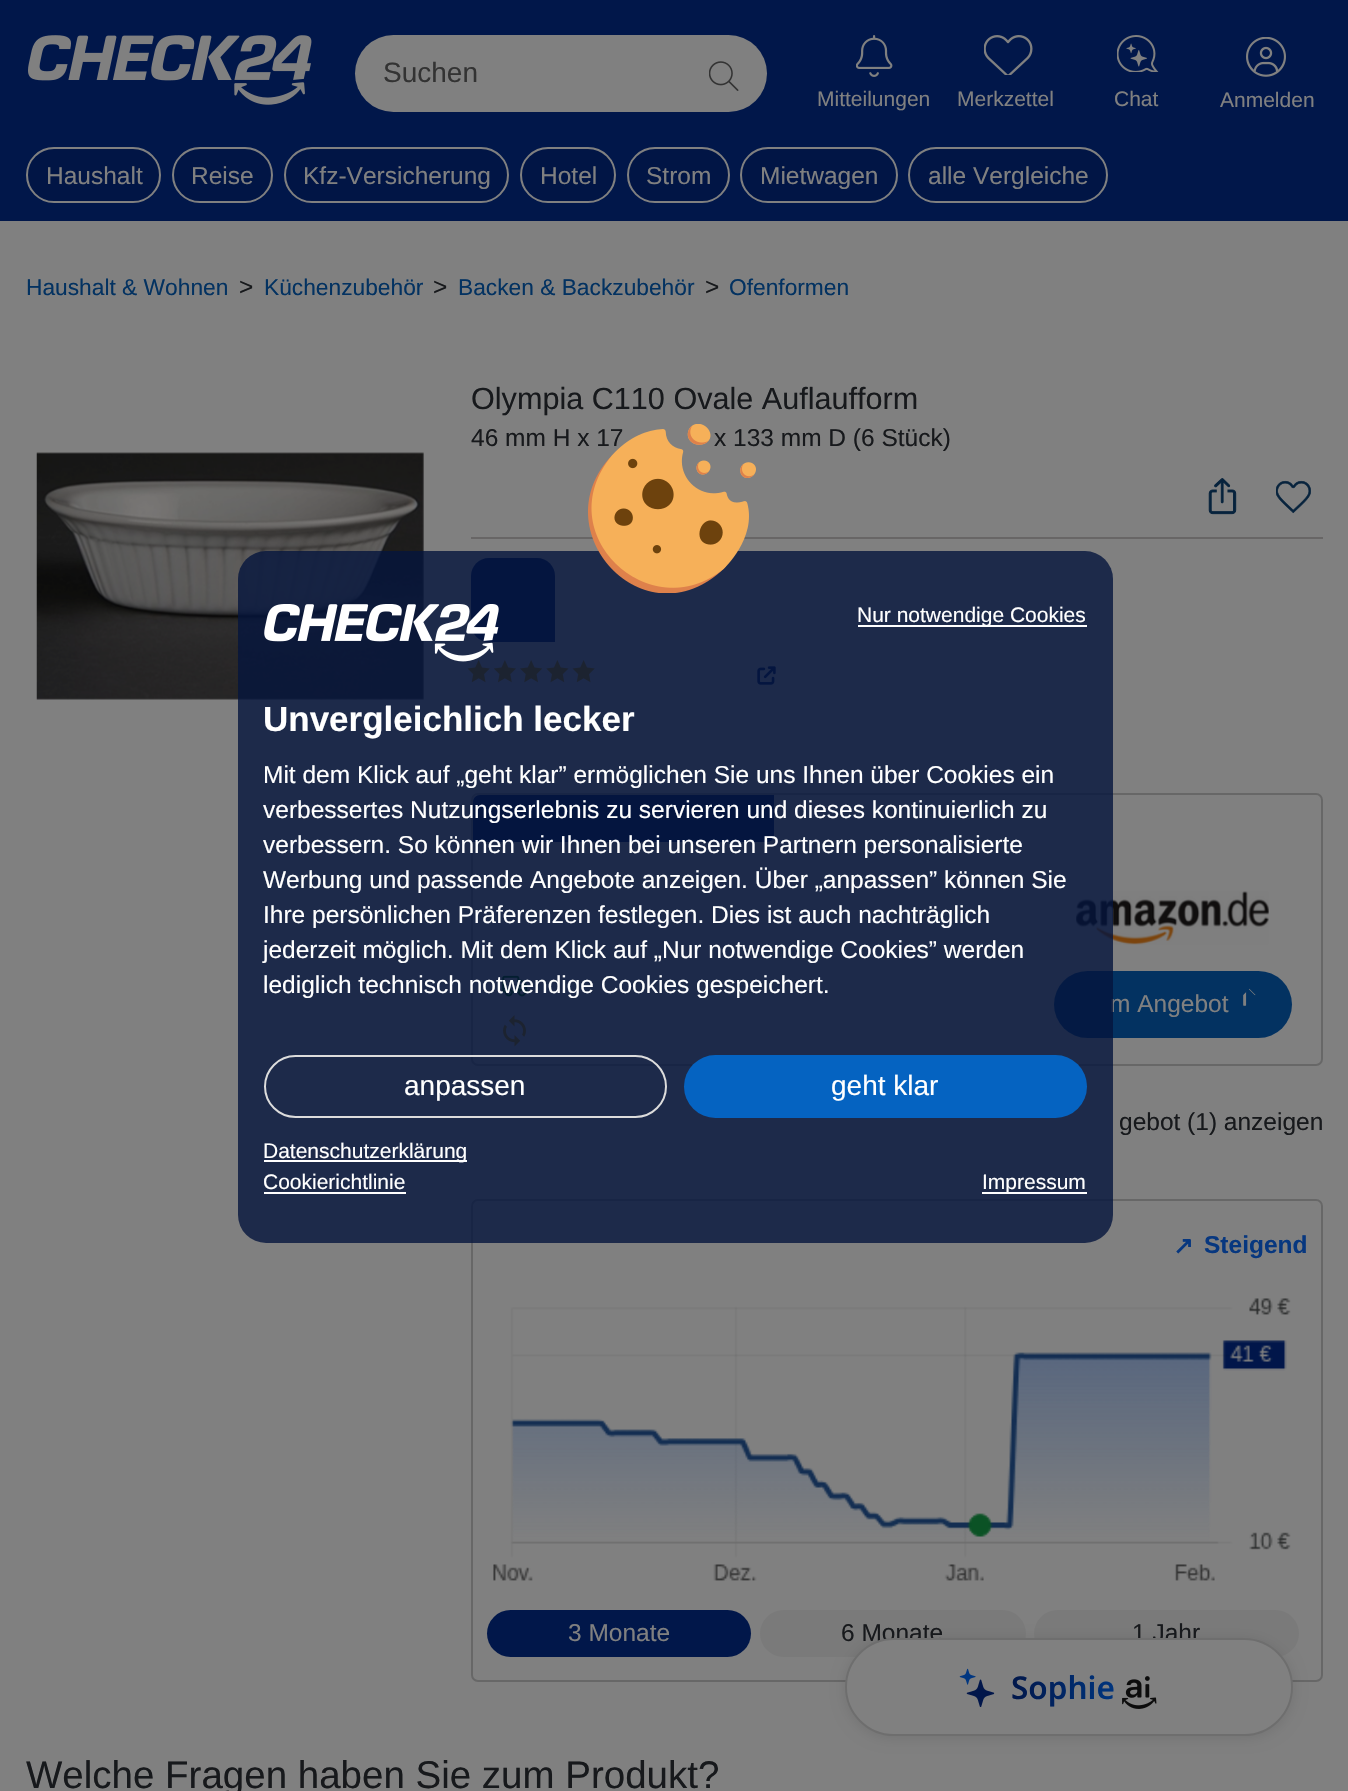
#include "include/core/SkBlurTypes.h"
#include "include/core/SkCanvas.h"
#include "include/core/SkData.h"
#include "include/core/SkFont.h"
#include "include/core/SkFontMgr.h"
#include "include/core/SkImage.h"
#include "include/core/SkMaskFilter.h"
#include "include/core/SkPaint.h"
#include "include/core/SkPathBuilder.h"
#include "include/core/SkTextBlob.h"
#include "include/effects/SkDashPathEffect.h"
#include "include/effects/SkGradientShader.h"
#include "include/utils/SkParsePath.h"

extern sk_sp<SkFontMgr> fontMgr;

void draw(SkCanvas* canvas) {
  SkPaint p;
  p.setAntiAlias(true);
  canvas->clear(SkColorSetRGB(128, 128, 128));
  p.setColor(SkColorSetRGB(1, 23, 74));
  canvas->drawRect(SkRect::MakeLTRB(0, 0, 1348, 221), p);
  canvas->drawImageRect(SkImages::DeferredFromEncodedData(SkData::MakeFromFileName("images/1.png")), SkRect::MakeLTRB(28, 35, 312, 105), SkSamplingOptions());
  p.setColor(SkColorSetRGB(128, 128, 128));
  canvas->drawRoundRect(SkRect::MakeLTRB(355, 35, 767, 112), 38.5f, 38.5f, p);
  canvas->drawImageRect(SkImages::DeferredFromEncodedData(SkData::MakeFromFileName("images/2.png")), SkRect::MakeLTRB(709, 61, 739, 91), SkSamplingOptions());
  canvas->drawImageRect(SkImages::DeferredFromEncodedData(SkData::MakeFromFileName("images/3.png")), SkRect::MakeLTRB(856, 35, 893, 77), SkSamplingOptions());
  canvas->drawImageRect(SkImages::DeferredFromEncodedData(SkData::MakeFromFileName("images/4.png")), SkRect::MakeLTRB(984, 35, 1033, 75), SkSamplingOptions());
  canvas->drawImageRect(SkImages::DeferredFromEncodedData(SkData::MakeFromFileName("images/5.png")), SkRect::MakeLTRB(1117, 35, 1159, 72), SkSamplingOptions());
  canvas->drawImageRect(SkImages::DeferredFromEncodedData(SkData::MakeFromFileName("images/6.png")), SkRect::MakeLTRB(1246, 37, 1286, 77), SkSamplingOptions());
  p.setColor(SkColorSetRGB(1, 21, 69));
  canvas->drawRoundRect(SkRect::MakeLTRB(27, 148, 160, 202), 27, 27, p);
  p.setStyle(SkPaint::kStroke_Style);
  p.setStrokeWidth(2);
  p.setColor(SkColorSetRGB(128, 128, 128));
  canvas->drawRoundRect(SkRect::MakeLTRB(27, 148, 160, 202), 27, 27, p);
  p.setStyle(SkPaint::kFill_Style);
  p.setColor(SkColorSetRGB(1, 21, 69));
  canvas->drawRoundRect(SkRect::MakeLTRB(173, 148, 272, 202), 27, 27, p);
  p.setStyle(SkPaint::kStroke_Style);
  p.setColor(SkColorSetRGB(128, 128, 128));
  canvas->drawRoundRect(SkRect::MakeLTRB(173, 148, 272, 202), 27, 27, p);
  p.setStyle(SkPaint::kFill_Style);
  p.setColor(SkColorSetRGB(1, 21, 69));
  canvas->drawRoundRect(SkRect::MakeLTRB(285, 148, 508, 202), 27, 27, p);
  p.setStyle(SkPaint::kStroke_Style);
  p.setColor(SkColorSetRGB(128, 128, 128));
  canvas->drawRoundRect(SkRect::MakeLTRB(285, 148, 508, 202), 27, 27, p);
  p.setStyle(SkPaint::kFill_Style);
  p.setColor(SkColorSetRGB(1, 21, 69));
  canvas->drawRoundRect(SkRect::MakeLTRB(521, 148, 615, 202), 27, 27, p);
  p.setStyle(SkPaint::kStroke_Style);
  p.setColor(SkColorSetRGB(128, 128, 128));
  canvas->drawRoundRect(SkRect::MakeLTRB(521, 148, 615, 202), 27, 27, p);
  p.setStyle(SkPaint::kFill_Style);
  p.setColor(SkColorSetRGB(1, 21, 69));
  canvas->drawRoundRect(SkRect::MakeLTRB(628, 148, 729, 202), 27, 27, p);
  p.setStyle(SkPaint::kStroke_Style);
  p.setColor(SkColorSetRGB(128, 128, 128));
  canvas->drawRoundRect(SkRect::MakeLTRB(628, 148, 729, 202), 27, 27, p);
  p.setStyle(SkPaint::kFill_Style);
  p.setColor(SkColorSetRGB(1, 21, 69));
  canvas->drawRoundRect(SkRect::MakeLTRB(741, 148, 897, 202), 27, 27, p);
  p.setStyle(SkPaint::kStroke_Style);
  p.setColor(SkColorSetRGB(128, 128, 128));
  canvas->drawRoundRect(SkRect::MakeLTRB(741, 148, 897, 202), 27, 27, p);
  p.setStyle(SkPaint::kFill_Style);
  p.setColor(SkColorSetRGB(1, 21, 69));
  canvas->drawRoundRect(SkRect::MakeLTRB(909, 148, 1107, 202), 27, 27, p);
  p.setStyle(SkPaint::kStroke_Style);
  p.setColor(SkColorSetRGB(128, 128, 128));
  canvas->drawRoundRect(SkRect::MakeLTRB(909, 148, 1107, 202), 27, 27, p);
  canvas->drawImageRect(SkImages::DeferredFromEncodedData(SkData::MakeFromFileName("images/7.png")), SkRect::MakeLTRB(36, 452, 424, 700), SkSamplingOptions());
  p.setStyle(SkPaint::kFill_Style);
  p.setColor(SkColorSetRGB(104, 102, 102));
  canvas->drawRect(SkRect::MakeLTRB(471, 537, 1323, 539), p);
  canvas->drawImageRect(SkImages::DeferredFromEncodedData(SkData::MakeFromFileName("images/8.png")), SkRect::MakeLTRB(1208, 478, 1237, 515), SkSamplingOptions());
  canvas->drawImageRect(SkImages::DeferredFromEncodedData(SkData::MakeFromFileName("images/9.png")), SkRect::MakeLTRB(1276, 480, 1311, 514), SkSamplingOptions());
  p.setColor(SkColorSetRGB(1, 23, 74));
  canvas->drawPath(SkPathBuilder().moveTo(489, 558).lineTo(537, 558).cubicTo(547, 558, 555, 566, 555, 576).lineTo(555, 642).lineTo(489, 642).cubicTo(479, 642, 471, 634, 471, 624).lineTo(471, 576).cubicTo(471, 566, 479, 558, 489, 558).close().detach(), p);
  canvas->drawImageRect(SkImages::DeferredFromEncodedData(SkData::MakeFromFileName("images/10.png")), SkRect::MakeLTRB(467, 660, 490, 683), SkSamplingOptions());
  canvas->drawImageRect(SkImages::DeferredFromEncodedData(SkData::MakeFromFileName("images/11.png")), SkRect::MakeLTRB(494, 660, 516, 683), SkSamplingOptions());
  canvas->drawImageRect(SkImages::DeferredFromEncodedData(SkData::MakeFromFileName("images/12.png")), SkRect::MakeLTRB(520, 660, 543, 683), SkSamplingOptions());
  canvas->drawImageRect(SkImages::DeferredFromEncodedData(SkData::MakeFromFileName("images/13.png")), SkRect::MakeLTRB(546, 660, 569, 683), SkSamplingOptions());
  canvas->drawImageRect(SkImages::DeferredFromEncodedData(SkData::MakeFromFileName("images/10.png")), SkRect::MakeLTRB(572, 660, 595, 683), SkSamplingOptions());
  canvas->drawImageRect(SkImages::DeferredFromEncodedData(SkData::MakeFromFileName("images/14.png")), SkRect::MakeLTRB(757, 666, 776, 685), SkSamplingOptions());
  p.setStyle(SkPaint::kStroke_Style);
  p.setColor(SkColorSetRGB(103, 103, 103));
  canvas->drawRoundRect(SkRect::MakeLTRB(472, 794, 1322, 1065), 6, 6, p);
  p.setStyle(SkPaint::kFill_Style);
  p.setColor(SkColorSetRGB(1, 23, 74));
  canvas->drawPath(SkPathBuilder().moveTo(480, 795).lineTo(774, 795).lineTo(774, 835).cubicTo(774, 839, 771, 842, 767, 842).lineTo(473, 842).lineTo(473, 802).cubicTo(473, 798, 476, 795, 480, 795).close().detach(), p);
  canvas->drawImageRect(SkImages::DeferredFromEncodedData(SkData::MakeFromFileName("images/15.png")), SkRect::MakeLTRB(502, 975, 529, 997), SkSamplingOptions());
  canvas->drawImageRect(SkImages::DeferredFromEncodedData(SkData::MakeFromFileName("images/16.png")), SkRect::MakeLTRB(503, 1015, 526, 1047), SkSamplingOptions());
  canvas->drawImageRect(SkImages::DeferredFromEncodedData(SkData::MakeFromFileName("images/17.png")), SkRect::MakeLTRB(1076, 891, 1269, 945), SkSamplingOptions());
  p.setColor(SkColorSetRGB(3, 50, 97));
  canvas->drawRoundRect(SkRect::MakeLTRB(1054, 971, 1292, 1038), 33.5f, 33.5f, p);
  canvas->drawImageRect(SkImages::DeferredFromEncodedData(SkData::MakeFromFileName("images/18.png")), SkRect::MakeLTRB(1243, 988, 1256, 1006), SkSamplingOptions());
  p.setStyle(SkPaint::kStroke_Style);
  p.setColor(SkColorSetRGB(103, 103, 103));
  canvas->drawRoundRect(SkRect::MakeLTRB(472, 1200, 1322, 1681), 6, 6, p);
  canvas->drawImageRect(SkImages::DeferredFromEncodedData(SkData::MakeFromFileName("images/19.png")), SkRect::MakeLTRB(493, 1298, 1291, 1581), SkSamplingOptions());
  p.setStyle(SkPaint::kFill_Style);
  p.setColor(SkColorSetRGB(1, 23, 74));
  canvas->drawRoundRect(SkRect::MakeLTRB(487, 1610, 751, 1657), 23.5f, 23.5f, p);
  p.setColor(SkColorSetRGB(122, 122, 122));
  canvas->drawRoundRect(SkRect::MakeLTRB(760, 1610, 1026, 1657), 23.5f, 23.5f, p);
  canvas->drawRoundRect(SkRect::MakeLTRB(1034, 1610, 1299, 1657), 23.5f, 23.5f, p);
  p.setColor(SkColorSetARGB(26, 0, 0, 0));
  p.setMaskFilter(SkMaskFilter::MakeBlur(kNormal_SkBlurStyle, 7));
  canvas->drawRoundRect(SkRect::MakeLTRB(845, 1640, 1293, 1738), 49, 49, p);
  p.setMaskFilter(nullptr);
  SkFont font1(fontMgr->matchFamilyStyle("Liberation Sans", SkFontStyle::Normal()), 28);
  font1.setSubpixel(true);
  p.setColor(SkColorSetRGB(51, 51, 51));
  canvas->drawString("Suchen", 383, 82, font1, p);
  SkFont font2(fontMgr->matchFamilyStyle("Liberation Sans", SkFontStyle::Normal()), 21);
  font2.setSubpixel(true);
  p.setColor(SkColorSetRGB(128, 128, 128));
  canvas->drawString("Mitteilungen", 817, 106, font2, p);
  canvas->drawString("Merkzettel", 957, 106, font2, p);
  canvas->drawString("Chat", 1114, 106, font2, p);
  canvas->drawString("Anmelden", 1220, 107, font2, p);
  SkFont font3(fontMgr->matchFamilyStyle("Liberation Sans", SkFontStyle::Normal()), 24.5f);
  font3.setSubpixel(true);
  canvas->drawString("Haushalt", 46, 184, font3, p);
  canvas->drawString("Reise", 191, 184, font3, p);
  canvas->drawString("Kfz-Versicherung", 303, 184, font3, p);
  canvas->drawString("Hotel", 540, 184, font3, p);
  canvas->drawString("Strom", 646, 184, font3, p);
  canvas->drawString("Mietwagen", 760, 184, font3, p);
  canvas->drawString("alle Vergleiche", 928, 184, font3, p);
  SkFont font4(fontMgr->matchFamilyStyle("Liberation Sans", SkFontStyle::Normal()), 22.75f);
  font4.setSubpixel(true);
  p.setColor(SkColorSetRGB(3, 50, 97));
  canvas->drawString("Haushalt & Wohnen", 26, 295, font4, p);
  p.setColor(SkColorSetRGB(23, 25, 28));
  canvas->drawString(">", 239, 295, font3, p);
  p.setColor(SkColorSetRGB(3, 50, 97));
  canvas->drawString("Küchenzubehör", 264, 295, font4, p);
  p.setColor(SkColorSetRGB(23, 25, 28));
  canvas->drawString(">", 433, 295, font3, p);
  p.setColor(SkColorSetRGB(3, 50, 97));
  canvas->drawString("Backen & Backzubehör", 458, 295, font4, p);
  p.setColor(SkColorSetRGB(23, 25, 28));
  canvas->drawString(">", 705, 295, font3, p);
  p.setColor(SkColorSetRGB(3, 50, 97));
  canvas->drawString("Ofenformen", 729, 295, font4, p);
  SkFont font5(fontMgr->matchFamilyStyle("Liberation Sans", SkFontStyle::Normal()), 30.6f);
  font5.setSubpixel(true);
  p.setColor(SkColorSetRGB(23, 25, 28));
  canvas->drawString("Olympia C110 Ovale Auflaufform", 471, 409, font5, p);
  canvas->drawString("46 mm H x 17", 471, 446, font3, p);
  canvas->drawString("x 133 mm D (6 Stück)", 714, 446, font3, p);
  p.setColor(SkColorSetRGB(128, 128, 128));
  canvas->drawString("m Angebot", 1110, 1012, font3, p);
  p.setColor(SkColorSetRGB(23, 25, 28));
  canvas->drawString("gebot (1) anzeigen", 1119, 1130, font3, p);
  SkFont font6(fontMgr->matchFamilyStyle("DejaVu Sans", SkFontStyle::Bold()), 24.5f);
  font6.setSubpixel(true);
  p.setColor(SkColorSetRGB(7, 55, 127));
  canvas->drawString("↗", 1173, 1254, font6, p);
  SkFont font7(fontMgr->matchFamilyStyle("Liberation Sans", SkFontStyle::Bold()), 24.5f);
  font7.setSubpixel(true);
  canvas->drawString("Steigend", 1204, 1253, font7, p);
  p.setColor(SkColorSetRGB(128, 128, 128));
  canvas->drawString("3 Monate", 568, 1641, font3, p);
  p.setColor(SkColorSetRGB(23, 25, 28));
  canvas->drawString("6 Monate", 841, 1641, font3, p);
  canvas->drawString("1 Jahr", 1132, 1641, font3, p);
  SkFont font8(fontMgr->matchFamilyStyle("Liberation Sans", SkFontStyle::Normal()), 38.5f);
  font8.setSubpixel(true);
  canvas->drawString("Welche Fragen haben Sie zum Produkt?", 26, 1788, font8, p);
  p.setColor(SkColorSetRGB(128, 128, 128));
  canvas->drawRoundRect(SkRect::MakeLTRB(846, 1639, 1292, 1735), 48, 48, p);
  p.setStyle(SkPaint::kStroke_Style);
  p.setColor(SkColorSetRGB(110, 110, 110));
  canvas->drawRoundRect(SkRect::MakeLTRB(846, 1639, 1292, 1735), 48, 48, p);
  canvas->drawImageRect(SkImages::DeferredFromEncodedData(SkData::MakeFromFileName("images/20.png")), SkRect::MakeLTRB(959, 1668, 995, 1707), SkSamplingOptions());
  SkFont font9(fontMgr->matchFamilyStyle("Noto Sans", SkFontStyle(600, SkFontStyle::kNormal_Width, SkFontStyle::kUpright_Slant)), 31.5f);
  font9.setSubpixel(true);
  p.setStyle(SkPaint::kFill_Style);
  {
    const SkColor colors[] = {SkColorSetRGB(1, 23, 74), SkColorSetRGB(0, 54, 128)};
    const float stops[] = {0, 1};
    const SkPoint ends[] = {{1011, 1687}, {1119, 1687}};
    p.setShader(SkGradientShader::MakeLinear(ends, colors, stops, 2, SkTileMode::kClamp));
    p.setAlpha(255);
  }
  canvas->drawString("Sophie", 1011, 1699, font9, p);
  canvas->drawImageRect(SkImages::DeferredFromEncodedData(SkData::MakeFromFileName("images/21.png")), SkRect::MakeLTRB(1122, 1676, 1157, 1709), SkSamplingOptions());
  p.setShader(nullptr);
  p.setColor(SkColorSetARGB(204, 4, 20, 60));
  canvas->drawRoundRect(SkRect::MakeLTRB(238, 551, 1113, 1243), 28, 28, p);
  canvas->drawImageRect(SkImages::DeferredFromEncodedData(SkData::MakeFromFileName("images/22.png")), SkRect::MakeLTRB(588, 424, 756, 593), SkSamplingOptions());
  canvas->drawImageRect(SkImages::DeferredFromEncodedData(SkData::MakeFromFileName("images/23.png")), SkRect::MakeLTRB(264, 604, 499, 662), SkSamplingOptions());
  p.setColor(SK_ColorWHITE);
  canvas->drawRect(SkRect::MakeLTRB(858, 625, 1087, 627), p);
  canvas->drawString("Nur notwendige Cookies", 857, 622, font2, p);
  SkFont font10(fontMgr->matchFamilyStyle("Liberation Sans", SkFontStyle::Bold()), 35);
  font10.setSubpixel(true);
  canvas->drawString("Unvergleichlich lecker", 263, 731, font10, p);
  canvas->drawString("Mit dem Klick auf „geht klar” ermöglichen Sie uns Ihnen über Cookies ein", 263, 783, font3, p);
  canvas->drawString("verbessertes Nutzungserlebnis zu servieren und dieses kontinuierlich zu", 263, 818, font3, p);
  canvas->drawString("verbessern. So können wir Ihnen bei unseren Partnern personalisierte", 263, 853, font3, p);
  canvas->drawString("Werbung und passende Angebote anzeigen. Über „anpassen” können Sie", 263, 888, font3, p);
  canvas->drawString("Ihre persönlichen Präferenzen festlegen. Dies ist auch nachträglich", 263, 923, font3, p);
  canvas->drawString("jederzeit möglich. Mit dem Klick auf „Nur notwendige Cookies” werden", 263, 958, font3, p);
  canvas->drawString("lediglich technisch notwendige Cookies gespeichert.", 263, 993, font3, p);
  p.setStyle(SkPaint::kStroke_Style);
  p.setColor(SkColorSetRGB(220, 220, 220));
  canvas->drawRoundRect(SkRect::MakeLTRB(265, 1056, 666, 1117), 30.5f, 30.5f, p);
  p.setStyle(SkPaint::kFill_Style);
  p.setColor(SK_ColorWHITE);
  canvas->drawString("anpassen", 404, 1095, font1, p);
  p.setColor(SkColorSetRGB(5, 99, 193));
  canvas->drawRoundRect(SkRect::MakeLTRB(684, 1055, 1087, 1118), 31.5f, 31.5f, p);
  p.setColor(SK_ColorWHITE);
  canvas->drawString("geht klar", 831, 1095, font1, p);
  canvas->drawRect(SkRect::MakeLTRB(264, 1160, 467, 1162), p);
  canvas->drawString("Datenschutzerklärung", 263, 1158, font2, p);
  canvas->drawString("Cookierichtlinie", 263, 1189, font2, p);
  canvas->drawRect(SkRect::MakeLTRB(264, 1192, 406, 1194), p);
  canvas->drawRect(SkRect::MakeLTRB(982, 1192, 1087, 1194), p);
  canvas->drawString("Impressum", 982, 1189, font2, p);
}
